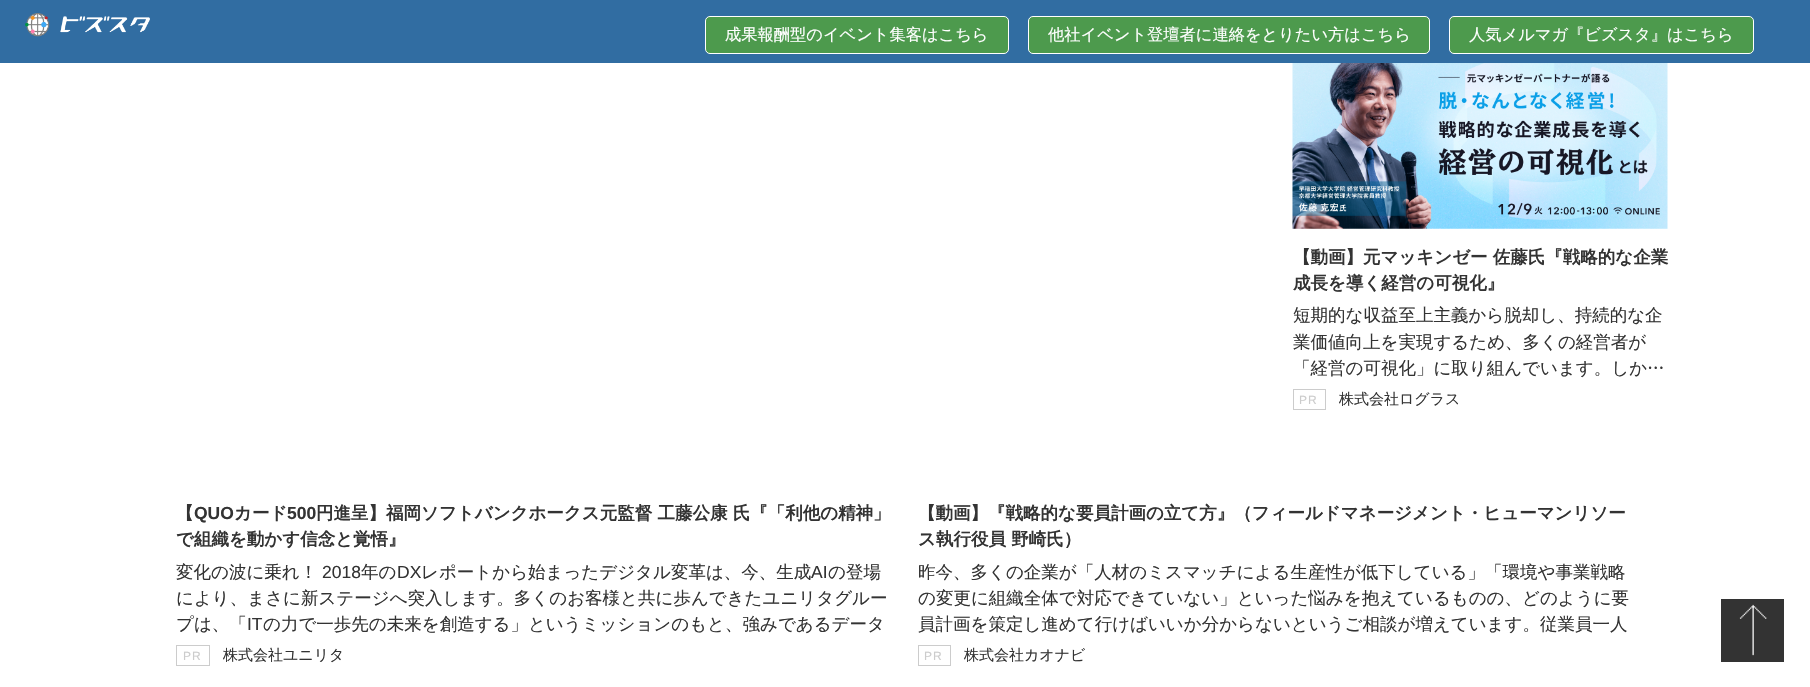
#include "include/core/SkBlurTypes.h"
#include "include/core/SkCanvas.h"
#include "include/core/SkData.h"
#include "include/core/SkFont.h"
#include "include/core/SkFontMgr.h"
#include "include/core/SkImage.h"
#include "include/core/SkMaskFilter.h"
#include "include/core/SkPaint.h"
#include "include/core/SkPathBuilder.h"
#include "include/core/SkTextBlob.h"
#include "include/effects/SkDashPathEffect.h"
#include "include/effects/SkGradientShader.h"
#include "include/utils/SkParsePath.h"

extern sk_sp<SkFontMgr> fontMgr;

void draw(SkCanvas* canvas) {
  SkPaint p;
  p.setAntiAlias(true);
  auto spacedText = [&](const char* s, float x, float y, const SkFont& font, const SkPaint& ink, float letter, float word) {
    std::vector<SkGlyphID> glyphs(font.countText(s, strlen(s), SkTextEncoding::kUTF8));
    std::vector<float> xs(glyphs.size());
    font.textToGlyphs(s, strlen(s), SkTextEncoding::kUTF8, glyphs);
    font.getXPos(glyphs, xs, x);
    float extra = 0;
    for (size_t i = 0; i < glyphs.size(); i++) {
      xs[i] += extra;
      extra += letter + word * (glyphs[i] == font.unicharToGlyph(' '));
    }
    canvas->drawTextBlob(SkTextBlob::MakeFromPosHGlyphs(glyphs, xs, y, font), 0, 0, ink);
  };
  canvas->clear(SK_ColorWHITE);
  p.setColor(SkColorSetRGB(49, 109, 162));
  canvas->drawRect(SkRect::MakeLTRB(0, 0, 1810, 63), p);
  canvas->drawImageRect(SkImages::DeferredFromEncodedData(SkData::MakeFromFileName("images/1.png")), SkRect::MakeLTRB(25, 13, 150, 37), SkSamplingOptions());
  p.setColor(SkColorSetRGB(77, 154, 77));
  canvas->drawRoundRect(SkRect::MakeLTRB(705.5f, 16.5f, 1008.5f, 53.5f), 4.5f, 4.5f, p);
  p.setStyle(SkPaint::kStroke_Style);
  p.setStrokeWidth(1);
  p.setColor(SK_ColorWHITE);
  canvas->drawRoundRect(SkRect::MakeLTRB(705.5f, 16.5f, 1008.5f, 53.5f), 4.5f, 4.5f, p);
  p.setStyle(SkPaint::kFill_Style);
  p.setColor(SkColorSetRGB(77, 154, 77));
  canvas->drawRoundRect(SkRect::MakeLTRB(1028.5f, 16.5f, 1429.5f, 53.5f), 4.5f, 4.5f, p);
  p.setStyle(SkPaint::kStroke_Style);
  p.setColor(SK_ColorWHITE);
  canvas->drawRoundRect(SkRect::MakeLTRB(1028.5f, 16.5f, 1429.5f, 53.5f), 4.5f, 4.5f, p);
  p.setStyle(SkPaint::kFill_Style);
  p.setColor(SkColorSetRGB(77, 154, 77));
  canvas->drawRoundRect(SkRect::MakeLTRB(1449.5f, 16.5f, 1753.5f, 53.5f), 4.5f, 4.5f, p);
  p.setStyle(SkPaint::kStroke_Style);
  p.setColor(SK_ColorWHITE);
  canvas->drawRoundRect(SkRect::MakeLTRB(1449.5f, 16.5f, 1753.5f, 53.5f), 4.5f, 4.5f, p);
  canvas->drawImageRect(SkImages::DeferredFromEncodedData(SkData::MakeFromFileName("images/2.png")), SkRect::MakeLTRB(1292, 63, 1668, 229), SkSamplingOptions());
  p.setColor(SkColorSetRGB(204, 204, 204));
  canvas->drawRect(SkRect::MakeLTRB(1293.5f, 389.5f, 1325.5f, 409.5f), p);
  canvas->drawRect(SkRect::MakeLTRB(176.5f, 645.5f, 209.5f, 665.5f), p);
  canvas->drawRect(SkRect::MakeLTRB(918.5f, 645.5f, 950.5f, 665.5f), p);
  p.setStyle(SkPaint::kFill_Style);
  p.setColor(SkColorSetRGB(51, 51, 51));
  canvas->drawRect(SkRect::MakeLTRB(1721, 599, 1784, 662), p);
  canvas->drawImageRect(SkImages::DeferredFromEncodedData(SkData::MakeFromFileName("images/3.png")), SkRect::MakeLTRB(1739, 604, 1767, 656), SkSamplingOptions());
  SkFont font1(fontMgr->matchFamilyStyle("WenQuanYi Zen Hei", SkFontStyle(500, SkFontStyle::kNormal_Width, SkFontStyle::kUpright_Slant)), 16.25f);
  font1.setSubpixel(true);
  p.setColor(SK_ColorWHITE);
  canvas->drawString("成果報酬型のイベント集客はこちら", 725, 40, font1, p);
  canvas->drawString("他社イベント登壇者に連絡をとりたい方はこちら", 1048, 40, font1, p);
  canvas->drawString("人気メルマガ『ビズスタ』はこちら", 1469, 40, font1, p);
  SkFont font2(fontMgr->matchFamilyStyle("WenQuanYi Zen Hei", SkFontStyle::Bold()), 17.5f);
  font2.setSubpixel(true);
  p.setColor(SkColorSetRGB(51, 51, 51));
  canvas->drawString("【動画】元マッキンゼー 佐藤氏『戦略的な企業", 1293, 263, font2, p);
  canvas->drawString("成長を導く経営の可視化』", 1293, 289, font2, p);
  SkFont font3(fontMgr->matchFamilyStyle("WenQuanYi Zen Hei", SkFontStyle(500, SkFontStyle::kNormal_Width, SkFontStyle::kUpright_Slant)), 17.5f);
  font3.setSubpixel(true);
  canvas->drawString("短期的な収益至上主義から脱却し、持続的な企", 1293, 321, font3, p);
  canvas->drawString("業価値向上を実現するため、多くの経営者が", 1293, 348, font3, p);
  canvas->drawString("「経営の可視化」に取り組んでいます。しか…", 1293, 374, font3, p);
  SkFont font4(fontMgr->matchFamilyStyle("Liberation Sans", SkFontStyle::Normal()), 12);
  font4.setSubpixel(true);
  p.setColor(SkColorSetRGB(204, 204, 204));
  spacedText("PR", 1299, 404, font4, p, 1, 0);
  SkFont font5(fontMgr->matchFamilyStyle("WenQuanYi Zen Hei", SkFontStyle(500, SkFontStyle::kNormal_Width, SkFontStyle::kUpright_Slant)), 15);
  font5.setSubpixel(true);
  p.setColor(SkColorSetRGB(51, 51, 51));
  canvas->drawString("株式会社ログラス", 1339, 404, font5, p);
  canvas->drawString("【", 176, 519, font2, p);
  SkFont font6(fontMgr->matchFamilyStyle("Liberation Sans", SkFontStyle::Bold()), 17.5f);
  font6.setSubpixel(true);
  canvas->drawString("QUO", 194, 519, font6, p);
  canvas->drawString("カード", 234, 519, font2, p);
  canvas->drawString("500", 287, 519, font6, p);
  canvas->drawString("円進呈】福岡ソフトバンクホークス元監督 工藤公康 氏『「利他の精神」", 316, 519, font2, p);
  canvas->drawString("で組織を動かす信念と覚悟』", 176, 545, font2, p);
  canvas->drawString("変化の波に乗れ！", 176, 578, font3, p);
  SkFont font7(fontMgr->matchFamilyStyle("Liberation Sans", SkFontStyle::Normal()), 17.5f);
  font7.setSubpixel(true);
  canvas->drawString("2018", 322, 578, font7, p);
  canvas->drawString("年の", 361, 578, font3, p);
  canvas->drawString("DX", 397, 578, font7, p);
  canvas->drawString("レポートから始まったデジタル変革は、今、生成", 421, 578, font3, p);
  canvas->drawString("AI", 811, 578, font7, p);
  canvas->drawString("の登場", 828, 578, font3, p);
  canvas->drawString("により、まさに新ステージへ突入します。多くのお客様と共に歩んできたユニリタグルー", 176, 604, font3, p);
  canvas->drawString("プは、「", 176, 630, font3, p);
  canvas->drawString("IT", 247, 630, font7, p);
  canvas->drawString("の力で一歩先の未来を創造する」というミッションのもと、強みであるデータ", 263, 630, font3, p);
  p.setColor(SkColorSetRGB(204, 204, 204));
  spacedText("PR", 183, 660, font4, p, 1, 0);
  p.setColor(SkColorSetRGB(51, 51, 51));
  canvas->drawString("株式会社ユニリタ", 223, 660, font5, p);
  canvas->drawString("【動画】『戦略的な要員計画の立て方』（フィールドマネージメント・ヒューマンリソー", 918, 519, font2, p);
  canvas->drawString("ス執行役員 野崎氏）", 918, 545, font2, p);
  canvas->drawString("昨今、多くの企業が「人材のミスマッチによる生産性が低下している」「環境や事業戦略", 918, 578, font3, p);
  canvas->drawString("の変更に組織全体で対応できていない」といった悩みを抱えているものの、どのように要", 918, 604, font3, p);
  canvas->drawString("員計画を策定し進めて行けばいいか分からないというご相談が増えています。従業員一人", 918, 630, font3, p);
  p.setColor(SkColorSetRGB(204, 204, 204));
  spacedText("PR", 924, 660, font4, p, 1, 0);
  p.setColor(SkColorSetRGB(51, 51, 51));
  canvas->drawString("株式会社カオナビ", 964, 660, font5, p);
}
